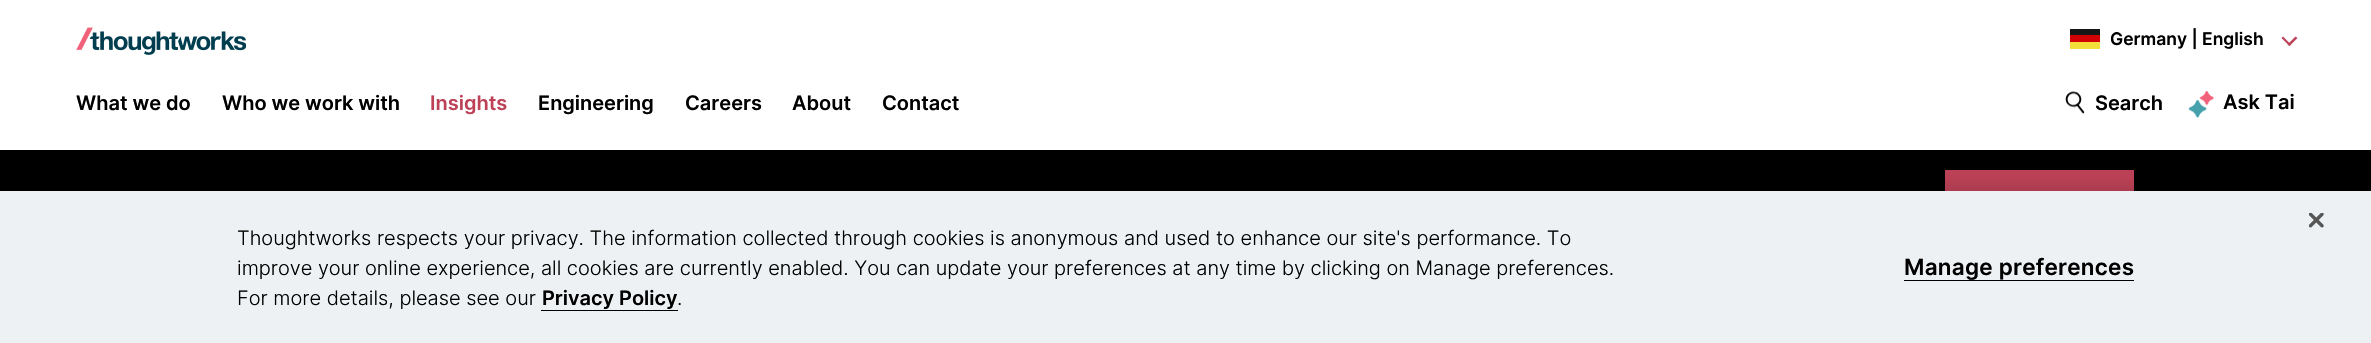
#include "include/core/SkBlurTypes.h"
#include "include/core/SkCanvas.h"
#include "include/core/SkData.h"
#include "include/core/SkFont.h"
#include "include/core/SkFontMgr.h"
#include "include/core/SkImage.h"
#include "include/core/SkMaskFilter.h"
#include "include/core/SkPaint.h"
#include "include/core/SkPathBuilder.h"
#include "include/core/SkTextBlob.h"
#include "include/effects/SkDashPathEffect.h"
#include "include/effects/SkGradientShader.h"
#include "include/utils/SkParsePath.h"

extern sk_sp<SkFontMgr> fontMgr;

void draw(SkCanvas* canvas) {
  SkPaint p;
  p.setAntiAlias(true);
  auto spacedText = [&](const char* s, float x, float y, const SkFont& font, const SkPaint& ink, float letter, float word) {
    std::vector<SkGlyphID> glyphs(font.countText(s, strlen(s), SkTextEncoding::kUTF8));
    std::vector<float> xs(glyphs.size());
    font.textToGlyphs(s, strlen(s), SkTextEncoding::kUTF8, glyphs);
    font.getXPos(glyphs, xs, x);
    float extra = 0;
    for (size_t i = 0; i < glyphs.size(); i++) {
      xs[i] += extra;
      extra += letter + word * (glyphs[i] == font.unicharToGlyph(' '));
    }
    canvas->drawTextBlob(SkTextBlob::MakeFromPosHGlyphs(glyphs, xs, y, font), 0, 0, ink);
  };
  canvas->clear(SK_ColorBLACK);
  p.setColor(SK_ColorWHITE);
  canvas->drawRect(SkRect::MakeLTRB(0, 0, 2371, 150), p);
  p.setColor(SkColorSetRGB(189, 66, 87));
  canvas->drawRect(SkRect::MakeLTRB(1945, 170, 2134, 191), p);
  canvas->drawImageRect(SkImages::DeferredFromEncodedData(SkData::MakeFromFileName("images/1.png")), SkRect::MakeLTRB(76, 27, 246, 55), SkSamplingOptions());
  p.setColor(SkColorSetRGB(22, 22, 22));
  canvas->drawRect(SkRect::MakeLTRB(2070, 29, 2100, 35), p);
  p.setColor(SkColorSetRGB(208, 1, 0));
  canvas->drawRect(SkRect::MakeLTRB(2070, 35, 2100, 42), p);
  p.setColor(SkColorSetRGB(243, 222, 58));
  canvas->drawRect(SkRect::MakeLTRB(2070, 42, 2100, 49), p);
  p.setColor(SkColorSetRGB(189, 66, 87));
  canvas->drawPath(SkPathBuilder().moveTo(2297.5f, 38).lineTo(2289.5f, 46).lineTo(2287.5f, 44.5f).lineTo(2295.5f, 36.5f).close().detach(), p);
  canvas->drawPath(SkPathBuilder().moveTo(2291, 44.5f).lineTo(2289.5f, 46).lineTo(2281.5f, 38).lineTo(2283, 36.5f).close().detach(), p);
  canvas->drawImageRect(SkImages::DeferredFromEncodedData(SkData::MakeFromFileName("images/2.png")), SkRect::MakeLTRB(2065, 91, 2085, 114), SkSamplingOptions());
  canvas->drawImageRect(SkImages::DeferredFromEncodedData(SkData::MakeFromFileName("images/4.png")), SkRect::MakeLTRB(2189, 91, 2214, 118), SkSamplingOptions());
  canvas->drawImageRect(SkImages::DeferredFromEncodedData(SkData::MakeFromFileName("images/3.png")), SkRect::MakeLTRB(2188, 91, 2214, 118), SkSamplingOptions());
  p.setColor(SkColorSetARGB(51, 0, 0, 0));
  p.setMaskFilter(SkMaskFilter::MakeBlur(kNormal_SkBlurStyle, 11));
  canvas->drawRect(SkRect::MakeLTRB(0, 191, 2371, 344), p);
  p.setMaskFilter(nullptr);
  p.setColor(SkColorSetRGB(237, 241, 243));
  canvas->drawRect(SkRect::MakeLTRB(0, 191, 2371, 343), p);
  canvas->drawImageRect(SkImages::DeferredFromEncodedData(SkData::MakeFromFileName("images/5.png")), SkRect::MakeLTRB(2309, 213, 2324, 228), SkSamplingOptions());
  p.setColor(SK_ColorBLACK);
  canvas->drawRect(SkRect::MakeLTRB(541, 310, 678, 311), p);
  canvas->drawRect(SkRect::MakeLTRB(1904, 280, 2134, 281), p);
  SkFont font1(fontMgr->matchFamilyStyle("Inter", SkFontStyle(600, SkFontStyle::kNormal_Width, SkFontStyle::kUpright_Slant)), 17.5f);
  font1.setSubpixel(true);
  canvas->drawString("Germany | English", 2110, 45, font1, p);
  SkFont font2(fontMgr->matchFamilyStyle("Inter", SkFontStyle(600, SkFontStyle::kNormal_Width, SkFontStyle::kUpright_Slant)), 20);
  font2.setSubpixel(true);
  canvas->drawString("What we do", 76, 110, font2, p);
  canvas->drawString("Who we work with", 222, 110, font2, p);
  p.setColor(SkColorSetRGB(189, 66, 87));
  canvas->drawString("Insights", 430, 110, font2, p);
  p.setColor(SK_ColorBLACK);
  canvas->drawString("Engineering", 538, 110, font2, p);
  canvas->drawString("Careers", 685, 110, font2, p);
  canvas->drawString("About", 792, 110, font2, p);
  canvas->drawString("Contact", 882, 110, font2, p);
  canvas->drawString("Search", 2095, 110, font2, p);
  canvas->drawString("Ask Tai", 2223, 109, font2, p);
  SkFont font3(fontMgr->matchFamilyStyle("Inter", SkFontStyle(300, SkFontStyle::kNormal_Width, SkFontStyle::kUpright_Slant)), 20);
  font3.setSubpixel(true);
  canvas->drawString("Thoughtworks respects your privacy. The information collected through cookies is anonymous and used to enhance our site's performance. To", 237, 245, font3, p);
  canvas->drawString("improve your online experience, all cookies are currently enabled. You can update your preferences at any time by clicking on Manage preferences.", 237, 275, font3, p);
  canvas->drawString("For more details, please see our", 237, 305, font3, p);
  canvas->drawString("Privacy Policy", 542, 305, font2, p);
  canvas->drawString(".", 677, 305, font3, p);
  SkFont font4(fontMgr->matchFamilyStyle("Inter", SkFontStyle(600, SkFontStyle::kNormal_Width, SkFontStyle::kUpright_Slant)), 22.5f);
  font4.setSubpixel(true);
  spacedText("Manage preferences", 1904, 275, font4, p, 0.25f, 0);
}
